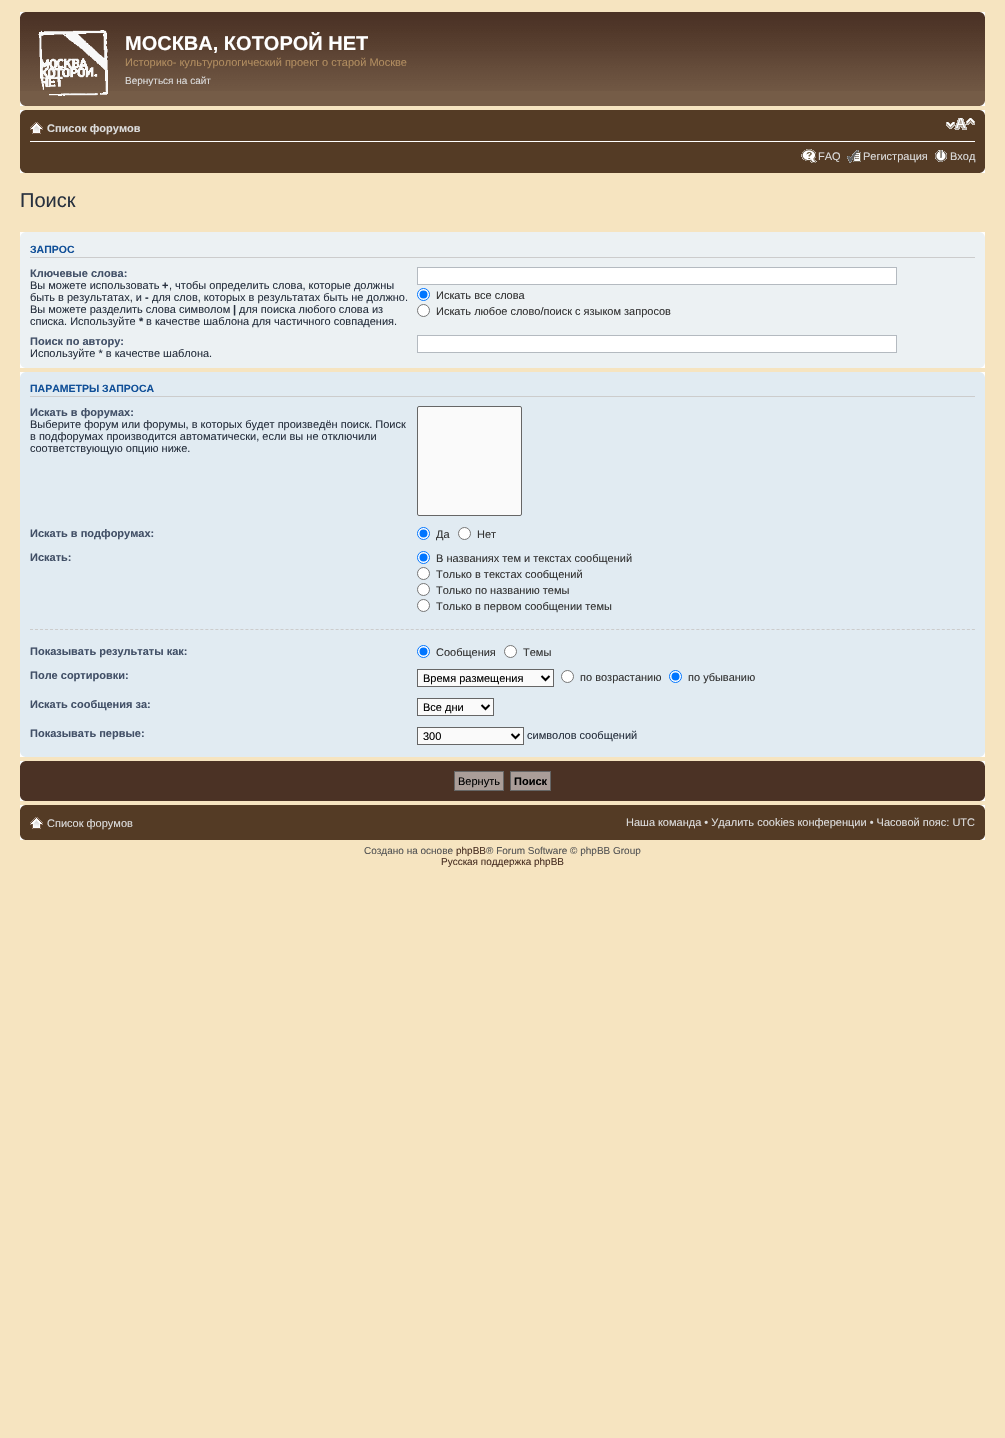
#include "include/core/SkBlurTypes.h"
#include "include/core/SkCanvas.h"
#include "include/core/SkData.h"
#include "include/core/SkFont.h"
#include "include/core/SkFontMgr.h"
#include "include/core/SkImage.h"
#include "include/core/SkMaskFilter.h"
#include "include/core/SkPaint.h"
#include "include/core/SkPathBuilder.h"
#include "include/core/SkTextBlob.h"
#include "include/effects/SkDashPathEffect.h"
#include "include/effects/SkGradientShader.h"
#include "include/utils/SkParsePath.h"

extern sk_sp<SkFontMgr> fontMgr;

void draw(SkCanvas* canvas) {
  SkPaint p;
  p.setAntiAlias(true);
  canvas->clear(SkColorSetRGB(246, 228, 192));
  p.setColor(SkColorSetRGB(117, 92, 71));
  canvas->drawRect(SkRect::MakeLTRB(20, 91, 985, 106), p);
  canvas->drawImageRect(SkImages::DeferredFromEncodedData(SkData::MakeFromFileName("images/1.png")), SkRect::MakeLTRB(20, 12, 985, 91), SkSamplingOptions());
  canvas->drawImageRect(SkImages::DeferredFromEncodedData(SkData::MakeFromFileName("images/2.png")), SkRect::MakeLTRB(20, 12, 26, 17), SkSamplingOptions());
  canvas->drawImageRect(SkImages::DeferredFromEncodedData(SkData::MakeFromFileName("images/3.png")), SkRect::MakeLTRB(979, 12, 985, 17), SkSamplingOptions());
  canvas->drawImageRect(SkImages::DeferredFromEncodedData(SkData::MakeFromFileName("images/4.png")), SkRect::MakeLTRB(38, 30, 108, 96), SkSamplingOptions());
  canvas->drawImageRect(SkImages::DeferredFromEncodedData(SkData::MakeFromFileName("images/5.png")), SkRect::MakeLTRB(20, 101, 25, 106), SkSamplingOptions());
  canvas->drawImageRect(SkImages::DeferredFromEncodedData(SkData::MakeFromFileName("images/6.png")), SkRect::MakeLTRB(980, 101, 985, 106), SkSamplingOptions());
  p.setColor(SkColorSetRGB(84, 59, 37));
  canvas->drawRect(SkRect::MakeLTRB(20, 110, 985, 173), p);
  canvas->drawImageRect(SkImages::DeferredFromEncodedData(SkData::MakeFromFileName("images/7.png")), SkRect::MakeLTRB(20, 110, 26, 115), SkSamplingOptions());
  canvas->drawImageRect(SkImages::DeferredFromEncodedData(SkData::MakeFromFileName("images/8.png")), SkRect::MakeLTRB(979, 110, 985, 115), SkSamplingOptions());
  p.setColor(SK_ColorWHITE);
  canvas->drawRect(SkRect::MakeLTRB(30, 141, 975, 142), p);
  canvas->drawImageRect(SkImages::DeferredFromEncodedData(SkData::MakeFromFileName("images/9.png")), SkRect::MakeLTRB(30, 122, 43, 134), SkSamplingOptions());
  canvas->drawImageRect(SkImages::DeferredFromEncodedData(SkData::MakeFromFileName("images/10.png")), SkRect::MakeLTRB(946, 118, 975, 130), SkSamplingOptions());
  canvas->drawImageRect(SkImages::DeferredFromEncodedData(SkData::MakeFromFileName("images/11.png")), SkRect::MakeLTRB(801, 149, 817, 163), SkSamplingOptions());
  canvas->drawImageRect(SkImages::DeferredFromEncodedData(SkData::MakeFromFileName("images/12.png")), SkRect::MakeLTRB(847, 150, 861, 163), SkSamplingOptions());
  canvas->drawImageRect(SkImages::DeferredFromEncodedData(SkData::MakeFromFileName("images/13.png")), SkRect::MakeLTRB(935, 150, 947, 162), SkSamplingOptions());
  canvas->drawImageRect(SkImages::DeferredFromEncodedData(SkData::MakeFromFileName("images/14.png")), SkRect::MakeLTRB(20, 168, 25, 173), SkSamplingOptions());
  canvas->drawImageRect(SkImages::DeferredFromEncodedData(SkData::MakeFromFileName("images/15.png")), SkRect::MakeLTRB(980, 168, 985, 173), SkSamplingOptions());
  p.setColor(SkColorSetRGB(236, 241, 243));
  canvas->drawRect(SkRect::MakeLTRB(20, 232, 985, 368), p);
  canvas->drawImageRect(SkImages::DeferredFromEncodedData(SkData::MakeFromFileName("images/16.png")), SkRect::MakeLTRB(20, 232, 25, 237), SkSamplingOptions());
  canvas->drawImageRect(SkImages::DeferredFromEncodedData(SkData::MakeFromFileName("images/17.png")), SkRect::MakeLTRB(980, 232, 985, 237), SkSamplingOptions());
  p.setColor(SkColorSetRGB(204, 204, 204));
  canvas->drawRect(SkRect::MakeLTRB(30, 257, 975, 258), p);
  p.setColor(SK_ColorWHITE);
  canvas->drawRect(SkRect::MakeLTRB(417.5f, 267.5f, 896.5f, 284.5f), p);
  p.setStyle(SkPaint::kStroke_Style);
  p.setStrokeWidth(1);
  p.setColor(SkColorSetRGB(180, 186, 192));
  canvas->drawRect(SkRect::MakeLTRB(417.5f, 267.5f, 896.5f, 284.5f), p);
  p.setStyle(SkPaint::kFill_Style);
  p.setColor(SK_ColorWHITE);
  canvas->drawCircle(423.5f, 294.5f, 6, p);
  p.setStyle(SkPaint::kStroke_Style);
  p.setColor(SkColorSetRGB(0, 117, 255));
  canvas->drawCircle(423.5f, 294.5f, 6, p);
  p.setStyle(SkPaint::kFill_Style);
  canvas->drawCircle(423.5f, 294.5f, 4, p);
  p.setColor(SK_ColorWHITE);
  canvas->drawCircle(423.5f, 310.5f, 6, p);
  p.setStyle(SkPaint::kStroke_Style);
  p.setColor(SkColorSetRGB(118, 118, 118));
  canvas->drawCircle(423.5f, 310.5f, 6, p);
  p.setStyle(SkPaint::kFill_Style);
  p.setColor(SK_ColorWHITE);
  canvas->drawRect(SkRect::MakeLTRB(417.5f, 335.5f, 896.5f, 352.5f), p);
  p.setStyle(SkPaint::kStroke_Style);
  p.setColor(SkColorSetRGB(180, 186, 192));
  canvas->drawRect(SkRect::MakeLTRB(417.5f, 335.5f, 896.5f, 352.5f), p);
  canvas->drawImageRect(SkImages::DeferredFromEncodedData(SkData::MakeFromFileName("images/18.png")), SkRect::MakeLTRB(20, 363, 25, 368), SkSamplingOptions());
  canvas->drawImageRect(SkImages::DeferredFromEncodedData(SkData::MakeFromFileName("images/19.png")), SkRect::MakeLTRB(980, 363, 985, 368), SkSamplingOptions());
  p.setStyle(SkPaint::kFill_Style);
  p.setColor(SkColorSetRGB(225, 235, 242));
  canvas->drawRect(SkRect::MakeLTRB(20, 372, 985, 757), p);
  canvas->drawImageRect(SkImages::DeferredFromEncodedData(SkData::MakeFromFileName("images/20.png")), SkRect::MakeLTRB(20, 372, 25, 377), SkSamplingOptions());
  canvas->drawImageRect(SkImages::DeferredFromEncodedData(SkData::MakeFromFileName("images/21.png")), SkRect::MakeLTRB(980, 372, 985, 377), SkSamplingOptions());
  p.setColor(SkColorSetRGB(204, 204, 204));
  canvas->drawRect(SkRect::MakeLTRB(30, 396, 975, 397), p);
  p.setColor(SkColorSetRGB(250, 250, 250));
  canvas->drawRoundRect(SkRect::MakeLTRB(417.5f, 406.5f, 521.5f, 515.5f), 1.5f, 1.5f, p);
  p.setStyle(SkPaint::kStroke_Style);
  p.setColor(SkColorSetRGB(102, 102, 102));
  canvas->drawRoundRect(SkRect::MakeLTRB(417.5f, 406.5f, 521.5f, 515.5f), 1.5f, 1.5f, p);
  p.setStyle(SkPaint::kFill_Style);
  p.setColor(SK_ColorWHITE);
  canvas->drawCircle(423.5f, 533.5f, 6, p);
  p.setStyle(SkPaint::kStroke_Style);
  p.setColor(SkColorSetRGB(0, 117, 255));
  canvas->drawCircle(423.5f, 533.5f, 6, p);
  p.setStyle(SkPaint::kFill_Style);
  canvas->drawCircle(423.5f, 533.5f, 4, p);
  p.setColor(SK_ColorWHITE);
  canvas->drawCircle(464.5f, 533.5f, 6, p);
  p.setStyle(SkPaint::kStroke_Style);
  p.setColor(SkColorSetRGB(118, 118, 118));
  canvas->drawCircle(464.5f, 533.5f, 6, p);
  p.setStyle(SkPaint::kFill_Style);
  p.setColor(SK_ColorWHITE);
  canvas->drawCircle(423.5f, 557.5f, 6, p);
  p.setStyle(SkPaint::kStroke_Style);
  p.setColor(SkColorSetRGB(0, 117, 255));
  canvas->drawCircle(423.5f, 557.5f, 6, p);
  p.setStyle(SkPaint::kFill_Style);
  canvas->drawCircle(423.5f, 557.5f, 4, p);
  p.setColor(SK_ColorWHITE);
  canvas->drawCircle(423.5f, 573.5f, 6, p);
  p.setStyle(SkPaint::kStroke_Style);
  p.setColor(SkColorSetRGB(118, 118, 118));
  canvas->drawCircle(423.5f, 573.5f, 6, p);
  p.setStyle(SkPaint::kFill_Style);
  p.setColor(SK_ColorWHITE);
  canvas->drawCircle(423.5f, 589.5f, 6, p);
  p.setStyle(SkPaint::kStroke_Style);
  p.setColor(SkColorSetRGB(118, 118, 118));
  canvas->drawCircle(423.5f, 589.5f, 6, p);
  p.setStyle(SkPaint::kFill_Style);
  p.setColor(SK_ColorWHITE);
  canvas->drawCircle(423.5f, 605.5f, 6, p);
  p.setStyle(SkPaint::kStroke_Style);
  p.setColor(SkColorSetRGB(118, 118, 118));
  canvas->drawCircle(423.5f, 605.5f, 6, p);
  p.setColor(SkColorSetRGB(204, 204, 204));
  p.setPathEffect(SkDashPathEffect::Make({{3, 2.01f}}, 0));
  canvas->drawPath(SkPathBuilder().moveTo(30, 629.5f).lineTo(975, 629.5f).detach(), p);
  p.setPathEffect(nullptr);
  p.setStyle(SkPaint::kFill_Style);
  p.setColor(SK_ColorWHITE);
  canvas->drawCircle(423.5f, 651.5f, 6, p);
  p.setStyle(SkPaint::kStroke_Style);
  p.setColor(SkColorSetRGB(0, 117, 255));
  canvas->drawCircle(423.5f, 651.5f, 6, p);
  p.setStyle(SkPaint::kFill_Style);
  canvas->drawCircle(423.5f, 651.5f, 4, p);
  p.setColor(SK_ColorWHITE);
  canvas->drawCircle(510.5f, 651.5f, 6, p);
  p.setStyle(SkPaint::kStroke_Style);
  p.setColor(SkColorSetRGB(118, 118, 118));
  canvas->drawCircle(510.5f, 651.5f, 6, p);
  p.setStyle(SkPaint::kFill_Style);
  p.setColor(SkColorSetRGB(250, 250, 250));
  canvas->drawRect(SkRect::MakeLTRB(417.5f, 669.5f, 553.5f, 686.5f), p);
  p.setStyle(SkPaint::kStroke_Style);
  p.setColor(SkColorSetRGB(102, 102, 102));
  canvas->drawRect(SkRect::MakeLTRB(417.5f, 669.5f, 553.5f, 686.5f), p);
  p.setStrokeWidth(2);
  p.setColor(SK_ColorBLACK);
  canvas->drawPath(SkPathBuilder().moveTo(541.5f, 676).lineTo(545.5f, 680).lineTo(549.5f, 676).detach(), p);
  p.setStyle(SkPaint::kFill_Style);
  p.setColor(SK_ColorWHITE);
  canvas->drawCircle(567.5f, 676.5f, 6, p);
  p.setStyle(SkPaint::kStroke_Style);
  p.setStrokeWidth(1);
  p.setColor(SkColorSetRGB(118, 118, 118));
  canvas->drawCircle(567.5f, 676.5f, 6, p);
  p.setStyle(SkPaint::kFill_Style);
  p.setColor(SK_ColorWHITE);
  canvas->drawCircle(675.5f, 676.5f, 6, p);
  p.setStyle(SkPaint::kStroke_Style);
  p.setColor(SkColorSetRGB(0, 117, 255));
  canvas->drawCircle(675.5f, 676.5f, 6, p);
  p.setStyle(SkPaint::kFill_Style);
  canvas->drawCircle(675.5f, 676.5f, 4, p);
  p.setColor(SkColorSetRGB(250, 250, 250));
  canvas->drawRect(SkRect::MakeLTRB(417.5f, 698.5f, 493.5f, 715.5f), p);
  p.setStyle(SkPaint::kStroke_Style);
  p.setColor(SkColorSetRGB(102, 102, 102));
  canvas->drawRect(SkRect::MakeLTRB(417.5f, 698.5f, 493.5f, 715.5f), p);
  p.setStrokeWidth(2);
  p.setColor(SK_ColorBLACK);
  canvas->drawPath(SkPathBuilder().moveTo(481.5f, 705).lineTo(485.5f, 709).lineTo(489.5f, 705).detach(), p);
  p.setStyle(SkPaint::kFill_Style);
  p.setColor(SkColorSetRGB(250, 250, 250));
  canvas->drawRect(SkRect::MakeLTRB(417.5f, 727.5f, 523.5f, 744.5f), p);
  p.setStyle(SkPaint::kStroke_Style);
  p.setStrokeWidth(1);
  p.setColor(SkColorSetRGB(102, 102, 102));
  canvas->drawRect(SkRect::MakeLTRB(417.5f, 727.5f, 523.5f, 744.5f), p);
  p.setStrokeWidth(2);
  p.setColor(SK_ColorBLACK);
  canvas->drawPath(SkPathBuilder().moveTo(511.5f, 734).lineTo(515.5f, 738).lineTo(519.5f, 734).detach(), p);
  canvas->drawImageRect(SkImages::DeferredFromEncodedData(SkData::MakeFromFileName("images/22.png")), SkRect::MakeLTRB(20, 752, 25, 757), SkSamplingOptions());
  canvas->drawImageRect(SkImages::DeferredFromEncodedData(SkData::MakeFromFileName("images/23.png")), SkRect::MakeLTRB(980, 752, 985, 757), SkSamplingOptions());
  p.setStyle(SkPaint::kFill_Style);
  p.setColor(SkColorSetRGB(75, 50, 37));
  canvas->drawRect(SkRect::MakeLTRB(20, 761, 985, 801), p);
  canvas->drawImageRect(SkImages::DeferredFromEncodedData(SkData::MakeFromFileName("images/24.png")), SkRect::MakeLTRB(20, 761, 26, 766), SkSamplingOptions());
  canvas->drawImageRect(SkImages::DeferredFromEncodedData(SkData::MakeFromFileName("images/25.png")), SkRect::MakeLTRB(979, 761, 985, 766), SkSamplingOptions());
  p.setColor(SkColorSetRGB(170, 157, 152));
  canvas->drawRect(SkRect::MakeLTRB(454.5f, 771.5f, 503.5f, 790.5f), p);
  p.setStyle(SkPaint::kStroke_Style);
  p.setStrokeWidth(1);
  p.setColor(SkColorSetRGB(102, 102, 102));
  canvas->drawRect(SkRect::MakeLTRB(454.5f, 771.5f, 503.5f, 790.5f), p);
  p.setStyle(SkPaint::kFill_Style);
  p.setColor(SkColorSetRGB(170, 157, 152));
  canvas->drawRect(SkRect::MakeLTRB(510.5f, 771.5f, 550.5f, 790.5f), p);
  p.setStyle(SkPaint::kStroke_Style);
  p.setColor(SkColorSetRGB(102, 102, 102));
  canvas->drawRect(SkRect::MakeLTRB(510.5f, 771.5f, 550.5f, 790.5f), p);
  canvas->drawImageRect(SkImages::DeferredFromEncodedData(SkData::MakeFromFileName("images/26.png")), SkRect::MakeLTRB(20, 796, 25, 801), SkSamplingOptions());
  canvas->drawImageRect(SkImages::DeferredFromEncodedData(SkData::MakeFromFileName("images/27.png")), SkRect::MakeLTRB(980, 796, 985, 801), SkSamplingOptions());
  p.setStyle(SkPaint::kFill_Style);
  p.setColor(SkColorSetRGB(84, 59, 37));
  canvas->drawRect(SkRect::MakeLTRB(20, 805, 985, 840), p);
  canvas->drawImageRect(SkImages::DeferredFromEncodedData(SkData::MakeFromFileName("images/7.png")), SkRect::MakeLTRB(20, 805, 26, 810), SkSamplingOptions());
  canvas->drawImageRect(SkImages::DeferredFromEncodedData(SkData::MakeFromFileName("images/8.png")), SkRect::MakeLTRB(979, 805, 985, 810), SkSamplingOptions());
  canvas->drawImageRect(SkImages::DeferredFromEncodedData(SkData::MakeFromFileName("images/9.png")), SkRect::MakeLTRB(30, 817, 43, 829), SkSamplingOptions());
  canvas->drawImageRect(SkImages::DeferredFromEncodedData(SkData::MakeFromFileName("images/14.png")), SkRect::MakeLTRB(20, 835, 25, 840), SkSamplingOptions());
  canvas->drawImageRect(SkImages::DeferredFromEncodedData(SkData::MakeFromFileName("images/15.png")), SkRect::MakeLTRB(980, 835, 985, 840), SkSamplingOptions());
  SkFont font1(fontMgr->matchFamilyStyle("Liberation Sans", SkFontStyle::Bold()), 20);
  font1.setSubpixel(true);
  p.setColor(SK_ColorWHITE);
  canvas->drawString("МОСКВА, КОТОРОЙ НЕТ", 125, 50, font1, p);
  SkFont font2(fontMgr->matchFamilyStyle("Liberation Sans", SkFontStyle::Normal()), 11);
  font2.setSubpixel(true);
  p.setColor(SkColorSetRGB(176, 140, 95));
  canvas->drawString("Историко- культурологический проект о старой Москве", 125, 66, font2, p);
  SkFont font3(fontMgr->matchFamilyStyle("Liberation Sans", SkFontStyle::Normal()), 10);
  font3.setSubpixel(true);
  p.setColor(SkColorSetRGB(220, 220, 220));
  canvas->drawString("Вернуться на сайт", 125, 84, font3, p);
  SkFont font4(fontMgr->matchFamilyStyle("Liberation Sans", SkFontStyle::Bold()), 11);
  font4.setSubpixel(true);
  canvas->drawString("Список форумов", 47, 132, font4, p);
  canvas->drawString("FAQ", 818, 160, font2, p);
  canvas->drawString("Регистрация", 863, 160, font2, p);
  canvas->drawString("Вход", 950, 160, font2, p);
  SkFont font5(fontMgr->matchFamilyStyle("Liberation Sans", SkFontStyle::Normal()), 20);
  font5.setSubpixel(true);
  p.setColor(SkColorSetRGB(40, 49, 63));
  canvas->drawString("Поиск", 20, 207, font5, p);
  SkFont font6(fontMgr->matchFamilyStyle("Liberation Sans", SkFontStyle::Bold()), 10.5f);
  font6.setSubpixel(true);
  p.setColor(SkColorSetRGB(17, 80, 152));
  canvas->drawString("ЗАПРОС", 30, 253, font6, p);
  p.setColor(SkColorSetRGB(66, 80, 103));
  canvas->drawString("Ключевые слова:", 30, 277, font4, p);
  p.setColor(SkColorSetRGB(40, 49, 63));
  canvas->drawString("Вы можете использовать", 30, 289, font2, p);
  canvas->drawString("+", 162, 289, font4, p);
  canvas->drawString(", чтобы определить слова, которые должны", 169, 289, font2, p);
  canvas->drawString("быть в результатах, и", 30, 301, font2, p);
  canvas->drawString("-", 145, 301, font4, p);
  canvas->drawString("для слов, которых в результатах быть не должно.", 152, 301, font2, p);
  canvas->drawString("Вы можете разделить слова символом", 30, 313, font2, p);
  canvas->drawString("|", 233, 313, font4, p);
  canvas->drawString("для поиска любого слова из", 239, 313, font2, p);
  canvas->drawString("списка. Используйте", 30, 325, font2, p);
  canvas->drawString("*", 139, 325, font4, p);
  canvas->drawString("в качестве шаблона для частичного совпадения.", 146, 325, font2, p);
  p.setColor(SkColorSetRGB(51, 51, 51));
  canvas->drawString("Искать все слова", 436, 299, font2, p);
  canvas->drawString("Искать любое слово/поиск с языком запросов", 436, 315, font2, p);
  p.setColor(SkColorSetRGB(66, 80, 103));
  canvas->drawString("Поиск по автору:", 30, 345, font4, p);
  p.setColor(SkColorSetRGB(40, 49, 63));
  canvas->drawString("Используйте * в качестве шаблона.", 30, 357, font2, p);
  p.setColor(SkColorSetRGB(17, 80, 152));
  canvas->drawString("ПАРАМЕТРЫ ЗАПРОСА", 30, 392, font6, p);
  p.setColor(SkColorSetRGB(66, 80, 103));
  canvas->drawString("Искать в форумах:", 30, 416, font4, p);
  p.setColor(SkColorSetRGB(40, 49, 63));
  canvas->drawString("Выберите форум или форумы, в которых будет произведён поиск. Поиск", 30, 428, font2, p);
  canvas->drawString("в подфорумах производится автоматически, если вы не отключили", 30, 440, font2, p);
  canvas->drawString("соответствующую опцию ниже.", 30, 452, font2, p);
  p.setColor(SkColorSetRGB(66, 80, 103));
  canvas->drawString("Искать в подфорумах:", 30, 537, font4, p);
  p.setColor(SkColorSetRGB(51, 51, 51));
  canvas->drawString("Да", 436, 538, font2, p);
  canvas->drawString("Нет", 477, 538, font2, p);
  p.setColor(SkColorSetRGB(66, 80, 103));
  canvas->drawString("Искать:", 30, 561, font4, p);
  p.setColor(SkColorSetRGB(51, 51, 51));
  canvas->drawString("В названиях тем и текстах сообщений", 436, 562, font2, p);
  canvas->drawString("Только в текстах сообщений", 436, 578, font2, p);
  canvas->drawString("Только по названию темы", 436, 594, font2, p);
  canvas->drawString("Только в первом сообщении темы", 436, 610, font2, p);
  p.setColor(SkColorSetRGB(66, 80, 103));
  canvas->drawString("Показывать результаты как:", 30, 655, font4, p);
  p.setColor(SkColorSetRGB(51, 51, 51));
  canvas->drawString("Сообщения", 436, 656, font2, p);
  canvas->drawString("Темы", 523, 656, font2, p);
  p.setColor(SkColorSetRGB(66, 80, 103));
  canvas->drawString("Поле сортировки:", 30, 679, font4, p);
  p.setColor(SK_ColorBLACK);
  canvas->drawString("Время размещения", 423, 682, font2, p);
  p.setColor(SkColorSetRGB(51, 51, 51));
  canvas->drawString("по возрастанию", 580, 681, font2, p);
  canvas->drawString("по убыванию", 688, 681, font2, p);
  p.setColor(SkColorSetRGB(66, 80, 103));
  canvas->drawString("Искать сообщения за:", 30, 708, font4, p);
  p.setColor(SK_ColorBLACK);
  canvas->drawString("Все дни", 423, 711, font2, p);
  p.setColor(SkColorSetRGB(66, 80, 103));
  canvas->drawString("Показывать первые:", 30, 737, font4, p);
  p.setColor(SK_ColorBLACK);
  canvas->drawString("300", 423, 740, font2, p);
  p.setColor(SkColorSetRGB(40, 49, 63));
  canvas->drawString("символов сообщений", 527, 739, font2, p);
  p.setColor(SK_ColorBLACK);
  canvas->drawString("Вернуть", 458, 785, font2, p);
  canvas->drawString("Поиск", 514, 785, font4, p);
  p.setColor(SkColorSetRGB(220, 220, 220));
  canvas->drawString("Список форумов", 47, 827, font2, p);
  canvas->drawString("Наша команда • Удалить cookies конференции • Часовой пояс: UTC", 626, 826, font2, p);
  p.setColor(SkColorSetRGB(85, 85, 85));
  canvas->drawString("Создано на основе", 364, 854, font3, p);
  p.setColor(SkColorSetRGB(75, 50, 37));
  canvas->drawString("phpBB", 456, 854, font3, p);
  p.setColor(SkColorSetRGB(85, 85, 85));
  canvas->drawString("® Forum Software © phpBB Group", 486, 854, font3, p);
  p.setColor(SkColorSetRGB(75, 50, 37));
  canvas->drawString("Русская поддержка phpBB", 441, 865, font3, p);
}
